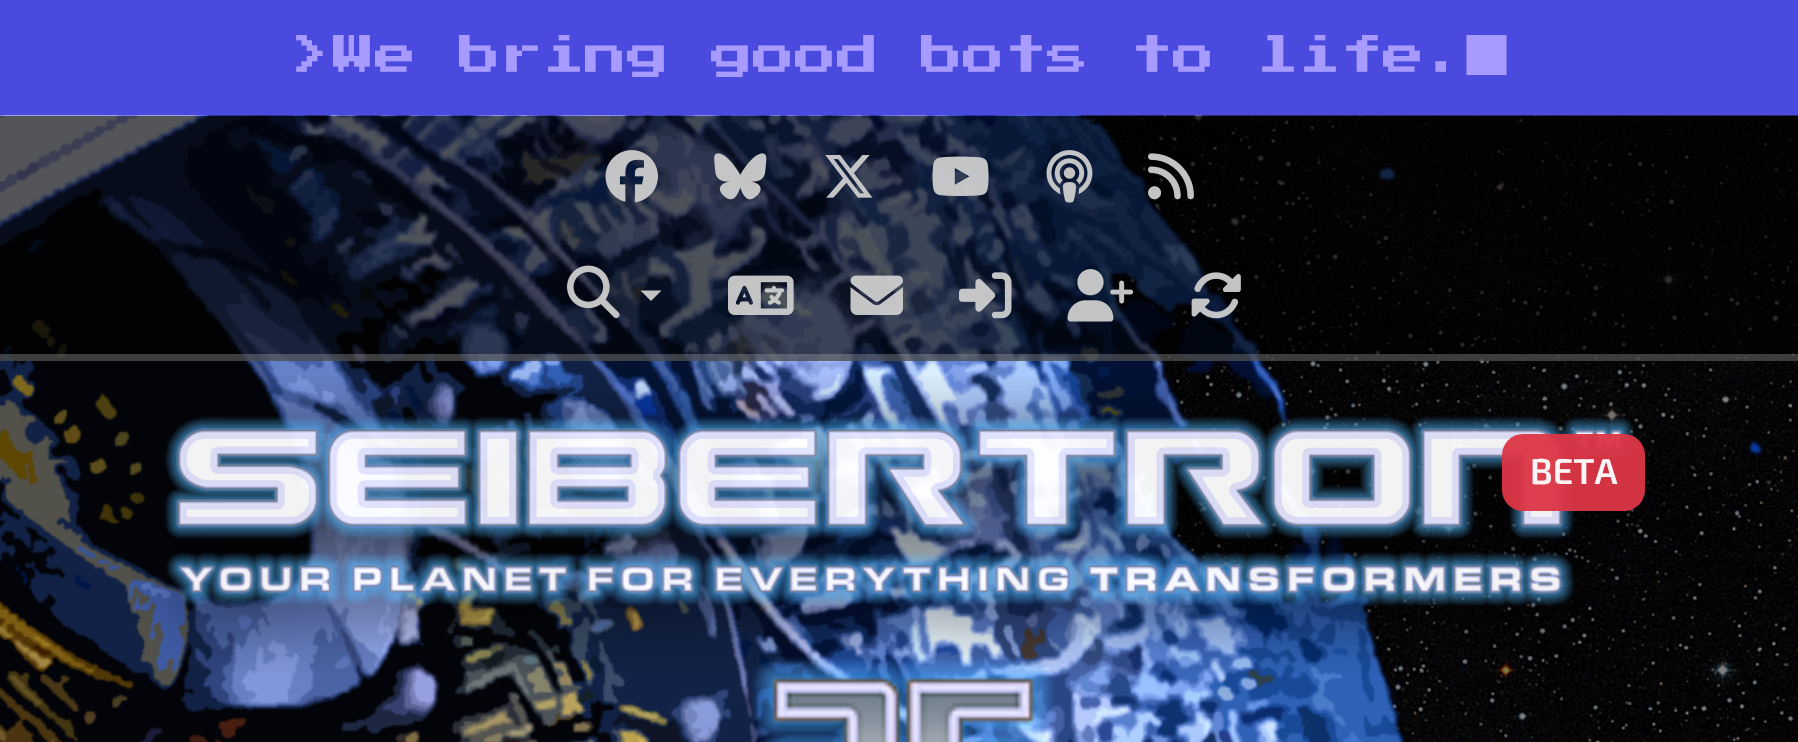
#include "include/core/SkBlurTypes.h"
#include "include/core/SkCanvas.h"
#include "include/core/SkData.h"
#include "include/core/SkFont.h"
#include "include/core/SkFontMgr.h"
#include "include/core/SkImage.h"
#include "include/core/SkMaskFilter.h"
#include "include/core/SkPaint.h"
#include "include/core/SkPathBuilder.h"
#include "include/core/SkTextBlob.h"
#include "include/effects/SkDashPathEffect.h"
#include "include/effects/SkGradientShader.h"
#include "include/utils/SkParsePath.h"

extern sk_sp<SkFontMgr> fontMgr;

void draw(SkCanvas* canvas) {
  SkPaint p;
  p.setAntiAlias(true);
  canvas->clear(SkColorSetRGB(74, 75, 222));
  p.setColor(SkColorSetRGB(168, 155, 255));
  canvas->drawPath(SkPathBuilder().moveTo(1466.5f, 35).lineTo(1506.5f, 35).lineTo(1466.5f, 35).lineTo(1506.5f, 35).lineTo(1506.5f, 75).lineTo(1466.5f, 75).close().detach(), p);
  canvas->drawImageRect(SkImages::DeferredFromEncodedData(SkData::MakeFromFileName("images/1.png")), SkRect::MakeLTRB(0, 115, 1798, 742), SkSamplingOptions());
  p.setColor(SkColorSetARGB(166, 0, 0, 0));
  canvas->drawRect(SkRect::MakeLTRB(0, 116, 1798, 361), p);
  p.setColor(SkColorSetARGB(89, 165, 165, 165));
  canvas->drawRect(SkRect::MakeLTRB(0, 354, 1798, 361), p);
  canvas->drawImageRect(SkImages::DeferredFromEncodedData(SkData::MakeFromFileName("images/2.png")), SkRect::MakeLTRB(605, 150, 658, 203), SkSamplingOptions());
  canvas->drawImageRect(SkImages::DeferredFromEncodedData(SkData::MakeFromFileName("images/3.png")), SkRect::MakeLTRB(714, 153, 767, 200), SkSamplingOptions());
  canvas->drawImageRect(SkImages::DeferredFromEncodedData(SkData::MakeFromFileName("images/4.png")), SkRect::MakeLTRB(825, 155, 873, 198), SkSamplingOptions());
  canvas->drawImageRect(SkImages::DeferredFromEncodedData(SkData::MakeFromFileName("images/5.png")), SkRect::MakeLTRB(932, 156, 989, 196), SkSamplingOptions());
  canvas->drawImageRect(SkImages::DeferredFromEncodedData(SkData::MakeFromFileName("images/6.png")), SkRect::MakeLTRB(1046, 150, 1093, 203), SkSamplingOptions());
  canvas->drawImageRect(SkImages::DeferredFromEncodedData(SkData::MakeFromFileName("images/7.png")), SkRect::MakeLTRB(1148, 153, 1194, 200), SkSamplingOptions());
  canvas->drawImageRect(SkImages::DeferredFromEncodedData(SkData::MakeFromFileName("images/8.png")), SkRect::MakeLTRB(567, 265, 620, 318), SkSamplingOptions());
  p.setColor(SkColorSetARGB(242, 204, 204, 204));
  canvas->drawPath(SkPathBuilder().moveTo(640.5f, 290.5f).lineTo(661.5f, 290.5f).lineTo(651, 301).close().detach(), p);
  canvas->drawImageRect(SkImages::DeferredFromEncodedData(SkData::MakeFromFileName("images/9.png")), SkRect::MakeLTRB(728, 275, 794, 315), SkSamplingOptions());
  canvas->drawImageRect(SkImages::DeferredFromEncodedData(SkData::MakeFromFileName("images/10.png")), SkRect::MakeLTRB(850, 275, 903, 315), SkSamplingOptions());
  canvas->drawImageRect(SkImages::DeferredFromEncodedData(SkData::MakeFromFileName("images/11.png")), SkRect::MakeLTRB(959, 272, 1012, 319), SkSamplingOptions());
  canvas->drawImageRect(SkImages::DeferredFromEncodedData(SkData::MakeFromFileName("images/12.png")), SkRect::MakeLTRB(1067, 269, 1134, 322), SkSamplingOptions());
  canvas->drawImageRect(SkImages::DeferredFromEncodedData(SkData::MakeFromFileName("images/13.png")), SkRect::MakeLTRB(1191, 272, 1241, 319), SkSamplingOptions());
  canvas->drawImageRect(SkImages::DeferredFromEncodedData(SkData::MakeFromFileName("images/14.png")), SkRect::MakeLTRB(130, 376, 1653, 673), SkSamplingOptions());
  p.setColor(SkColorSetARGB(242, 220, 53, 69));
  canvas->drawRoundRect(SkRect::MakeLTRB(1502, 434, 1645, 511), 21, 21, p);
  canvas->drawImageRect(SkImages::DeferredFromEncodedData(SkData::MakeFromFileName("images/15.png")), SkRect::MakeLTRB(751, 657, 1054, 742), SkSamplingOptions());
  SkFont font1(fontMgr->matchFamilyStyle("Press Start 2P", SkFontStyle::Normal()), 42);
  font1.setSubpixel(true);
  p.setColor(SkColorSetRGB(168, 155, 255));
  canvas->drawString(">We bring good bots to life.", 291, 77, font1, p);
  SkFont font2(fontMgr->matchFamilyStyle("Exo 2", SkFontStyle(600, SkFontStyle::kNormal_Width, SkFontStyle::kUpright_Slant)), 36);
  font2.setSubpixel(true);
  p.setColor(SkColorSetRGB(253, 245, 246));
  canvas->drawString("BETA", 1530, 484, font2, p);
}
